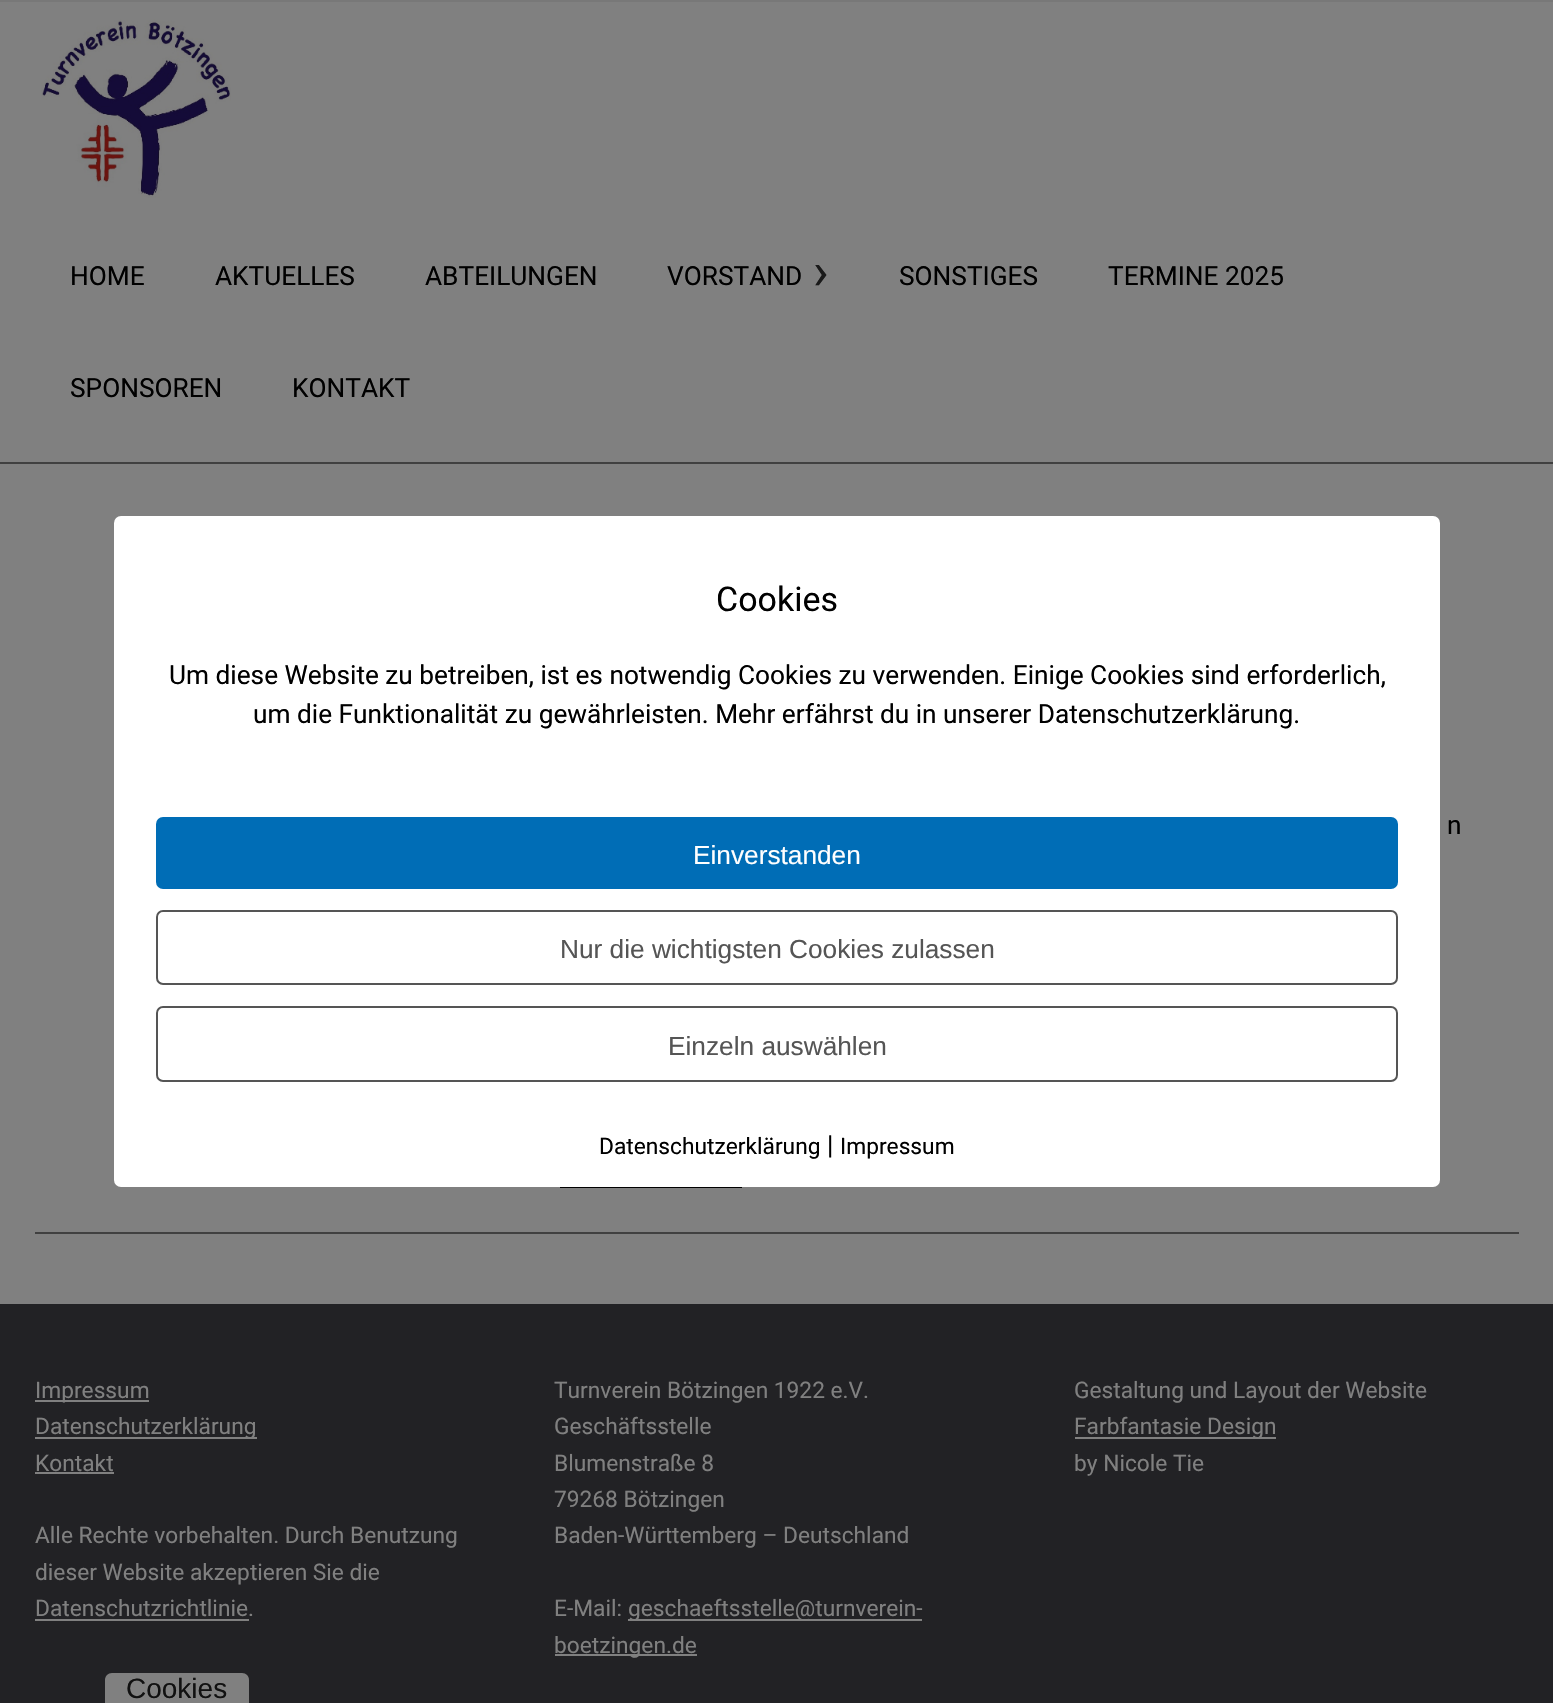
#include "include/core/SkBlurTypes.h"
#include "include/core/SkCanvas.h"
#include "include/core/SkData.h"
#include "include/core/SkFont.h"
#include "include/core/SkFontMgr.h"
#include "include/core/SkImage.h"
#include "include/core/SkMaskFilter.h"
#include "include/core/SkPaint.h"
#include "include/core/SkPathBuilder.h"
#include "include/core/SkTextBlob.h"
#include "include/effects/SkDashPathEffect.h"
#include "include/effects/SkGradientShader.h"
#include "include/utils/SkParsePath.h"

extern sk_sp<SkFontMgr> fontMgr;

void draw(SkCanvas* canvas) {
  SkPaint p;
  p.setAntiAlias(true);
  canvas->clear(SkColorSetRGB(128, 128, 128));
  p.setColor(SkColorSetRGB(120, 120, 120));
  canvas->drawRect(SkRect::MakeLTRB(0, 0, 1553, 2), p);
  p.setColor(SkColorSetRGB(64, 64, 64));
  canvas->drawRect(SkRect::MakeLTRB(0, 462, 1553, 464), p);
  canvas->drawImageRect(SkImages::DeferredFromEncodedData(SkData::MakeFromFileName("images/1.png")), SkRect::MakeLTRB(41, 19, 231, 198), SkSamplingOptions());
  canvas->drawRect(SkRect::MakeLTRB(35, 1232, 1519, 1234), p);
  p.setStyle(SkPaint::kStroke_Style);
  p.setStrokeWidth(2);
  p.setColor(SK_ColorBLACK);
  canvas->drawRect(SkRect::MakeLTRB(561, 1102, 741, 1187), p);
  p.setStyle(SkPaint::kFill_Style);
  p.setColor(SkColorSetRGB(34, 34, 37));
  canvas->drawRect(SkRect::MakeLTRB(0, 1304, 1553, 1703), p);
  p.setColor(SkColorSetRGB(128, 128, 128));
  canvas->drawRect(SkRect::MakeLTRB(35, 1400, 149, 1402), p);
  canvas->drawRect(SkRect::MakeLTRB(35, 1437, 257, 1439), p);
  canvas->drawRect(SkRect::MakeLTRB(35, 1472, 114, 1474), p);
  canvas->drawRect(SkRect::MakeLTRB(35, 1619, 249, 1621), p);
  canvas->drawRect(SkRect::MakeLTRB(628, 1619, 922, 1621), p);
  canvas->drawRect(SkRect::MakeLTRB(555, 1654, 697, 1656), p);
  canvas->drawRect(SkRect::MakeLTRB(1075, 1437, 1276, 1439), p);
  p.setColor(SK_ColorWHITE);
  canvas->drawRoundRect(SkRect::MakeLTRB(114, 516, 1440, 1187), 7, 7, p);
  p.setColor(SkColorSetRGB(0, 109, 182));
  canvas->drawRoundRect(SkRect::MakeLTRB(156, 817, 1398, 889), 7, 7, p);
  p.setStyle(SkPaint::kStroke_Style);
  p.setColor(SkColorSetRGB(85, 85, 85));
  canvas->drawRoundRect(SkRect::MakeLTRB(157, 911, 1397, 984), 6, 6, p);
  canvas->drawRoundRect(SkRect::MakeLTRB(157, 1007, 1397, 1081), 6, 6, p);
  p.setStyle(SkPaint::kFill_Style);
  p.setColor(SkColorSetRGB(128, 128, 128));
  canvas->drawPath(SkPathBuilder().moveTo(112, 1673).lineTo(242, 1673).cubicTo(246, 1673, 249, 1676, 249, 1680).lineTo(249, 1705).lineTo(105, 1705).lineTo(105, 1680).cubicTo(105, 1676, 108, 1673, 112, 1673).close().detach(), p);
  SkFont font1(fontMgr->matchFamilyStyle("Roboto", SkFontStyle::Normal()), 26.25f);
  font1.setSubpixel(true);
  p.setColor(SK_ColorBLACK);
  canvas->drawString("HOME", 70, 285, font1, p);
  canvas->drawString("AKTUELLES", 215, 285, font1, p);
  canvas->drawString("ABTEILUNGEN", 425, 285, font1, p);
  canvas->drawString("VORSTAND", 667, 285, font1, p);
  SkFont font2(fontMgr->matchFamilyStyle("Roboto", SkFontStyle::Normal()), 52);
  font2.setSubpixel(true);
  p.setColor(SkColorSetRGB(26, 26, 26));
  canvas->drawString("›", 813, 289, font2, p);
  p.setColor(SK_ColorBLACK);
  canvas->drawString("SONSTIGES", 899, 285, font1, p);
  canvas->drawString("TERMINE 2025", 1108, 285, font1, p);
  canvas->drawString("SPONSOREN", 70, 397, font1, p);
  canvas->drawString("KONTAKT", 292, 397, font1, p);
  canvas->drawString("n", 1447, 834, font1, p);
  SkFont font3(fontMgr->matchFamilyStyle("Roboto", SkFontStyle::Normal()), 22.75f);
  font3.setSubpixel(true);
  p.setColor(SkColorSetRGB(128, 128, 128));
  canvas->drawString("Impressum", 35, 1398, font3, p);
  canvas->drawString("Datenschutzerklärung", 35, 1434, font3, p);
  canvas->drawString("Kontakt", 35, 1471, font3, p);
  canvas->drawString("Alle Rechte vorbehalten. Durch Benutzung", 35, 1543, font3, p);
  canvas->drawString("dieser Website akzeptieren Sie die", 35, 1580, font3, p);
  canvas->drawString("Datenschutzrichtlinie.", 35, 1616, font3, p);
  canvas->drawString("Turnverein Bötzingen 1922 e.V.", 554, 1398, font3, p);
  canvas->drawString("Geschäftsstelle", 554, 1434, font3, p);
  canvas->drawString("Blumenstraße 8", 554, 1471, font3, p);
  canvas->drawString("79268 Bötzingen", 554, 1507, font3, p);
  canvas->drawString("Baden-Württemberg – Deutschland", 554, 1543, font3, p);
  canvas->drawString("E-Mail:", 554, 1616, font3, p);
  canvas->drawString("geschaeftsstelle@turnverein-", 628, 1616, font3, p);
  canvas->drawString("boetzingen.de", 554, 1653, font3, p);
  canvas->drawString("Gestaltung und Layout der Website", 1074, 1398, font3, p);
  canvas->drawString("Farbfantasie Design", 1074, 1434, font3, p);
  canvas->drawString("by Nicole Tie", 1074, 1471, font3, p);
  SkFont font4(fontMgr->matchFamilyStyle("Roboto", SkFontStyle::Normal()), 34);
  font4.setSubpixel(true);
  p.setColor(SK_ColorBLACK);
  canvas->drawString("Cookies", 716, 611, font4, p);
  canvas->drawString("Um diese Website zu betreiben, ist es notwendig Cookies zu verwenden. Einige Cookies sind erforderlich,", 169, 684, font1, p);
  canvas->drawString("um die Funktionalität zu gewährleisten. Mehr erfährst du in unserer Datenschutzerklärung.", 253, 723, font1, p);
  SkFont font5(fontMgr->matchFamilyStyle("Liberation Sans", SkFontStyle::Normal()), 26.25f);
  font5.setSubpixel(true);
  p.setColor(SK_ColorWHITE);
  canvas->drawString("Einverstanden", 693, 864, font5, p);
  p.setColor(SkColorSetRGB(85, 85, 85));
  canvas->drawString("Nur die wichtigsten Cookies zulassen", 560, 958, font5, p);
  canvas->drawString("Einzeln auswählen", 668, 1055, font5, p);
  p.setColor(SK_ColorBLACK);
  canvas->drawString("Datenschutzerklärung", 599, 1154, font3, p);
  canvas->drawString("|", 827, 1154, font1, p);
  canvas->drawString("Impressum", 840, 1154, font3, p);
  SkFont font6(fontMgr->matchFamilyStyle("Liberation Sans", SkFontStyle::Normal()), 28);
  font6.setSubpixel(true);
  p.setColor(SkColorSetRGB(17, 17, 17));
  canvas->drawString("Cookies", 126, 1698, font6, p);
}
